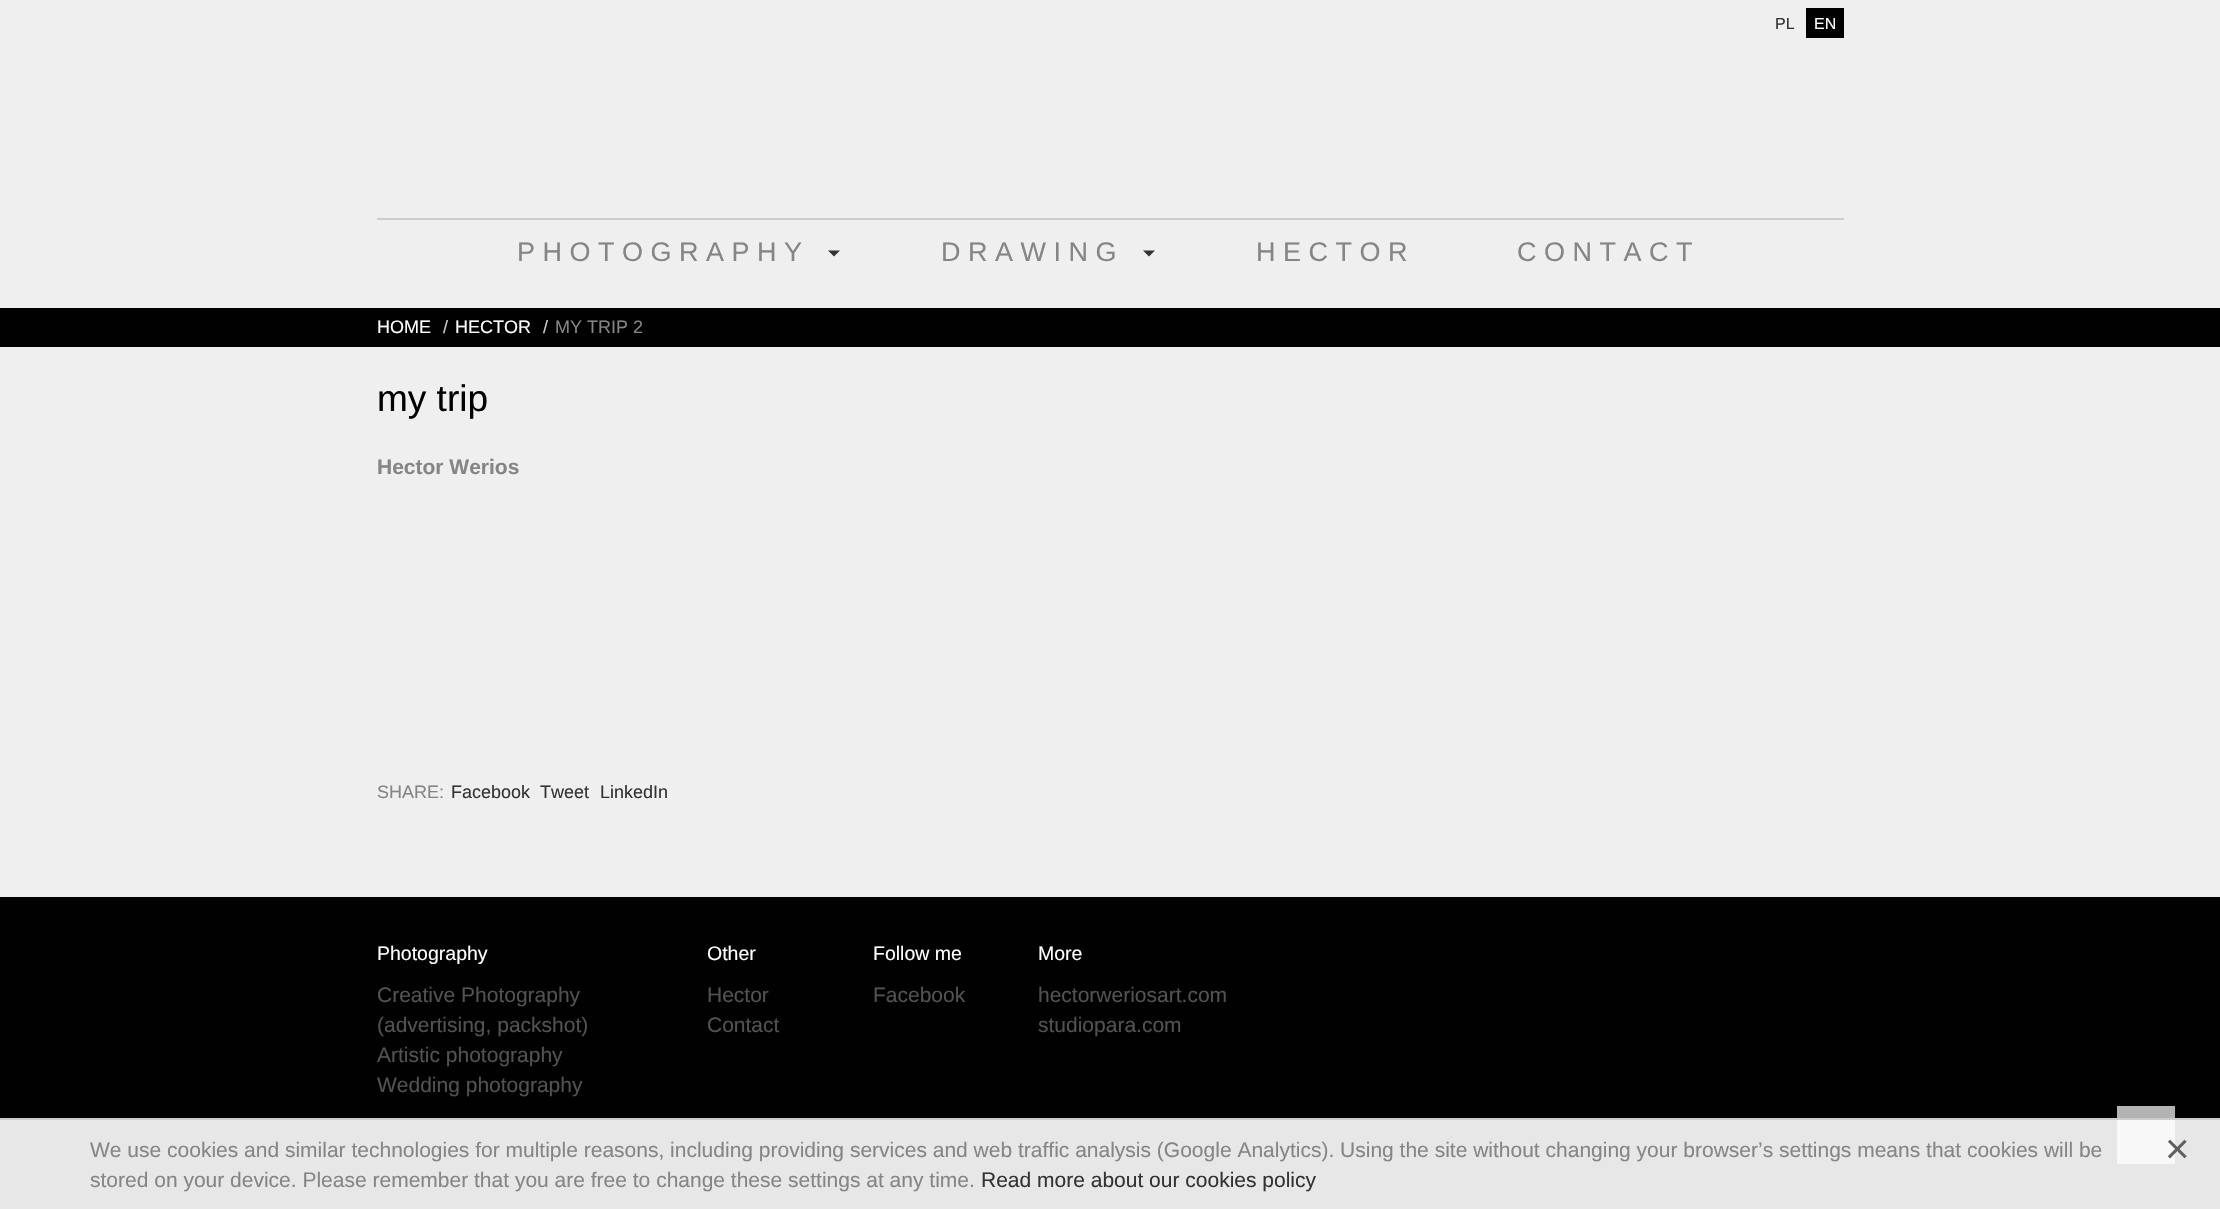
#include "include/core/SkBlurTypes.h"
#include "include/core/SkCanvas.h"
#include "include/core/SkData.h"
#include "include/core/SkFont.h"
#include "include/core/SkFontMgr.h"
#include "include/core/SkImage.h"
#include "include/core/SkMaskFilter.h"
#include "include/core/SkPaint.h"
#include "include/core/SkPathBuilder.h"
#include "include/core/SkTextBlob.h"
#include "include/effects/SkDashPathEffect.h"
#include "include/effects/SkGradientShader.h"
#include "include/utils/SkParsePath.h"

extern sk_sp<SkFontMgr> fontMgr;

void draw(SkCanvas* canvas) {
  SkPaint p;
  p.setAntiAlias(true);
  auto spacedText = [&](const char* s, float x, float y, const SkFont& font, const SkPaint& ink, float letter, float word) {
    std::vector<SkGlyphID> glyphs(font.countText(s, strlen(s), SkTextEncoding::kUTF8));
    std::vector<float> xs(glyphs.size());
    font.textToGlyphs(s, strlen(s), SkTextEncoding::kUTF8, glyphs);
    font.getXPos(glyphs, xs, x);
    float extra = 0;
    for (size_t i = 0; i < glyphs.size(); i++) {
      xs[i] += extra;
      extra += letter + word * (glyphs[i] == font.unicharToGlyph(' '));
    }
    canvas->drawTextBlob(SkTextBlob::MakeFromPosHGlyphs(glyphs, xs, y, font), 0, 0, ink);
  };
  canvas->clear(SkColorSetRGB(1, 1, 1));
  p.setColor(SkColorSetRGB(239, 239, 239));
  canvas->drawRect(SkRect::MakeLTRB(0, 0, 2220, 897), p);
  p.setColor(SkColorSetRGB(1, 1, 1));
  canvas->drawRect(SkRect::MakeLTRB(1806, 8, 1844, 38), p);
  p.setColor(SkColorSetRGB(204, 204, 204));
  canvas->drawRect(SkRect::MakeLTRB(377, 218, 1844, 220), p);
  p.setColor(SkColorSetRGB(51, 51, 51));
  canvas->drawPath(SkPathBuilder().moveTo(828, 250.5f).lineTo(840, 250.5f).lineTo(834, 256.5f).close().detach(), p);
  canvas->drawPath(SkPathBuilder().moveTo(1143, 250.5f).lineTo(1155, 250.5f).lineTo(1149, 256.5f).close().detach(), p);
  p.setColor(SkColorSetRGB(1, 1, 1));
  canvas->drawRect(SkRect::MakeLTRB(0, 308, 2220, 347), p);
  p.setColor(SkColorSetRGB(179, 179, 179));
  canvas->drawRect(SkRect::MakeLTRB(2117, 1106, 2175, 1164), p);
  p.setColor(SkColorSetARGB(230, 255, 255, 255));
  canvas->drawRect(SkRect::MakeLTRB(0, 1120, 2220, 1209), p);
  p.setColor(SkColorSetRGB(204, 204, 204));
  canvas->drawRect(SkRect::MakeLTRB(0, 1118, 2220, 1120), p);
  SkFont font1(fontMgr->matchFamilyStyle("Liberation Sans", SkFontStyle::Normal()), 16);
  font1.setSubpixel(true);
  p.setColor(SkColorSetRGB(51, 51, 51));
  canvas->drawString("PL", 1775, 29, font1, p);
  p.setColor(SK_ColorWHITE);
  canvas->drawString("EN", 1814, 29, font1, p);
  SkFont font2(fontMgr->matchFamilyStyle("Liberation Sans", SkFontStyle::Normal()), 27);
  font2.setSubpixel(true);
  p.setColor(SkColorSetRGB(133, 133, 133));
  spacedText("PHOTOGRAPHY", 517, 261, font2, p, 7.5f, 0);
  spacedText("DRAWING", 941, 261, font2, p, 7.5f, 0);
  spacedText("HECTOR", 1256, 261, font2, p, 7.5f, 0);
  spacedText("CONTACT", 1517, 261, font2, p, 7.5f, 0);
  SkFont font3(fontMgr->matchFamilyStyle("Liberation Sans", SkFontStyle::Normal()), 18);
  font3.setSubpixel(true);
  p.setColor(SK_ColorWHITE);
  canvas->drawString("HOME", 377, 333, font3, p);
  p.setColor(SkColorSetRGB(204, 204, 204));
  canvas->drawString("/", 443, 333, font3, p);
  p.setColor(SK_ColorWHITE);
  canvas->drawString("HECTOR", 455, 333, font3, p);
  p.setColor(SkColorSetRGB(204, 204, 204));
  canvas->drawString("/", 543, 333, font3, p);
  p.setColor(SkColorSetRGB(133, 133, 133));
  canvas->drawString("MY TRIP 2", 555, 333, font3, p);
  SkFont font4(fontMgr->matchFamilyStyle("Liberation Sans", SkFontStyle::Normal()), 37);
  font4.setSubpixel(true);
  p.setColor(SkColorSetRGB(1, 1, 1));
  canvas->drawString("my trip", 377, 411, font4, p);
  SkFont font5(fontMgr->matchFamilyStyle("Liberation Sans", SkFontStyle::Bold()), 21);
  font5.setSubpixel(true);
  p.setColor(SkColorSetRGB(133, 133, 133));
  canvas->drawString("Hector Werios", 377, 474, font5, p);
  canvas->drawString("SHARE:", 377, 798, font3, p);
  p.setColor(SkColorSetRGB(51, 51, 51));
  canvas->drawString("Facebook", 451, 798, font3, p);
  canvas->drawString("Tweet", 540, 798, font3, p);
  canvas->drawString("LinkedIn", 600, 798, font3, p);
  SkFont font6(fontMgr->matchFamilyStyle("Liberation Sans", SkFontStyle::Normal()), 19.5f);
  font6.setSubpixel(true);
  p.setColor(SK_ColorWHITE);
  canvas->drawString("Photography", 377, 960, font6, p);
  SkFont font7(fontMgr->matchFamilyStyle("Liberation Sans", SkFontStyle::Normal()), 21);
  font7.setSubpixel(true);
  p.setColor(SkColorSetRGB(81, 82, 82));
  canvas->drawString("Creative Photography", 377, 1002, font7, p);
  canvas->drawString("(advertising, packshot)", 377, 1032, font7, p);
  canvas->drawString("Artistic photography", 377, 1062, font7, p);
  canvas->drawString("Wedding photography", 377, 1092, font7, p);
  p.setColor(SK_ColorWHITE);
  canvas->drawString("Other", 707, 960, font6, p);
  p.setColor(SkColorSetRGB(81, 82, 82));
  canvas->drawString("Hector", 707, 1002, font7, p);
  canvas->drawString("Contact", 707, 1032, font7, p);
  p.setColor(SK_ColorWHITE);
  canvas->drawString("Follow me", 873, 960, font6, p);
  p.setColor(SkColorSetRGB(81, 82, 82));
  canvas->drawString("Facebook", 873, 1002, font7, p);
  p.setColor(SK_ColorWHITE);
  canvas->drawString("More", 1038, 960, font6, p);
  p.setColor(SkColorSetRGB(81, 82, 82));
  canvas->drawString("hectorweriosart.com", 1038, 1002, font7, p);
  canvas->drawString("studiopara.com", 1038, 1032, font7, p);
  p.setColor(SkColorSetRGB(133, 133, 133));
  canvas->drawString("We use cookies and similar technologies for multiple reasons, including providing services and web traffic analysis (Google Analytics). Using the site without changing your browser’s settings means that cookies will be", 90, 1157, font7, p);
  canvas->drawString("stored on your device. Please remember that you are free to change these settings at any time.", 90, 1187, font7, p);
  p.setColor(SkColorSetRGB(51, 51, 51));
  canvas->drawString("Read more about our cookies policy", 981, 1187, font7, p);
  SkFont font8(fontMgr->matchFamilyStyle("Liberation Sans", SkFontStyle::Normal()), 42);
  font8.setSubpixel(true);
  p.setColor(SkColorSetRGB(95, 95, 95));
  canvas->drawString("×", 2165, 1163, font8, p);
}
